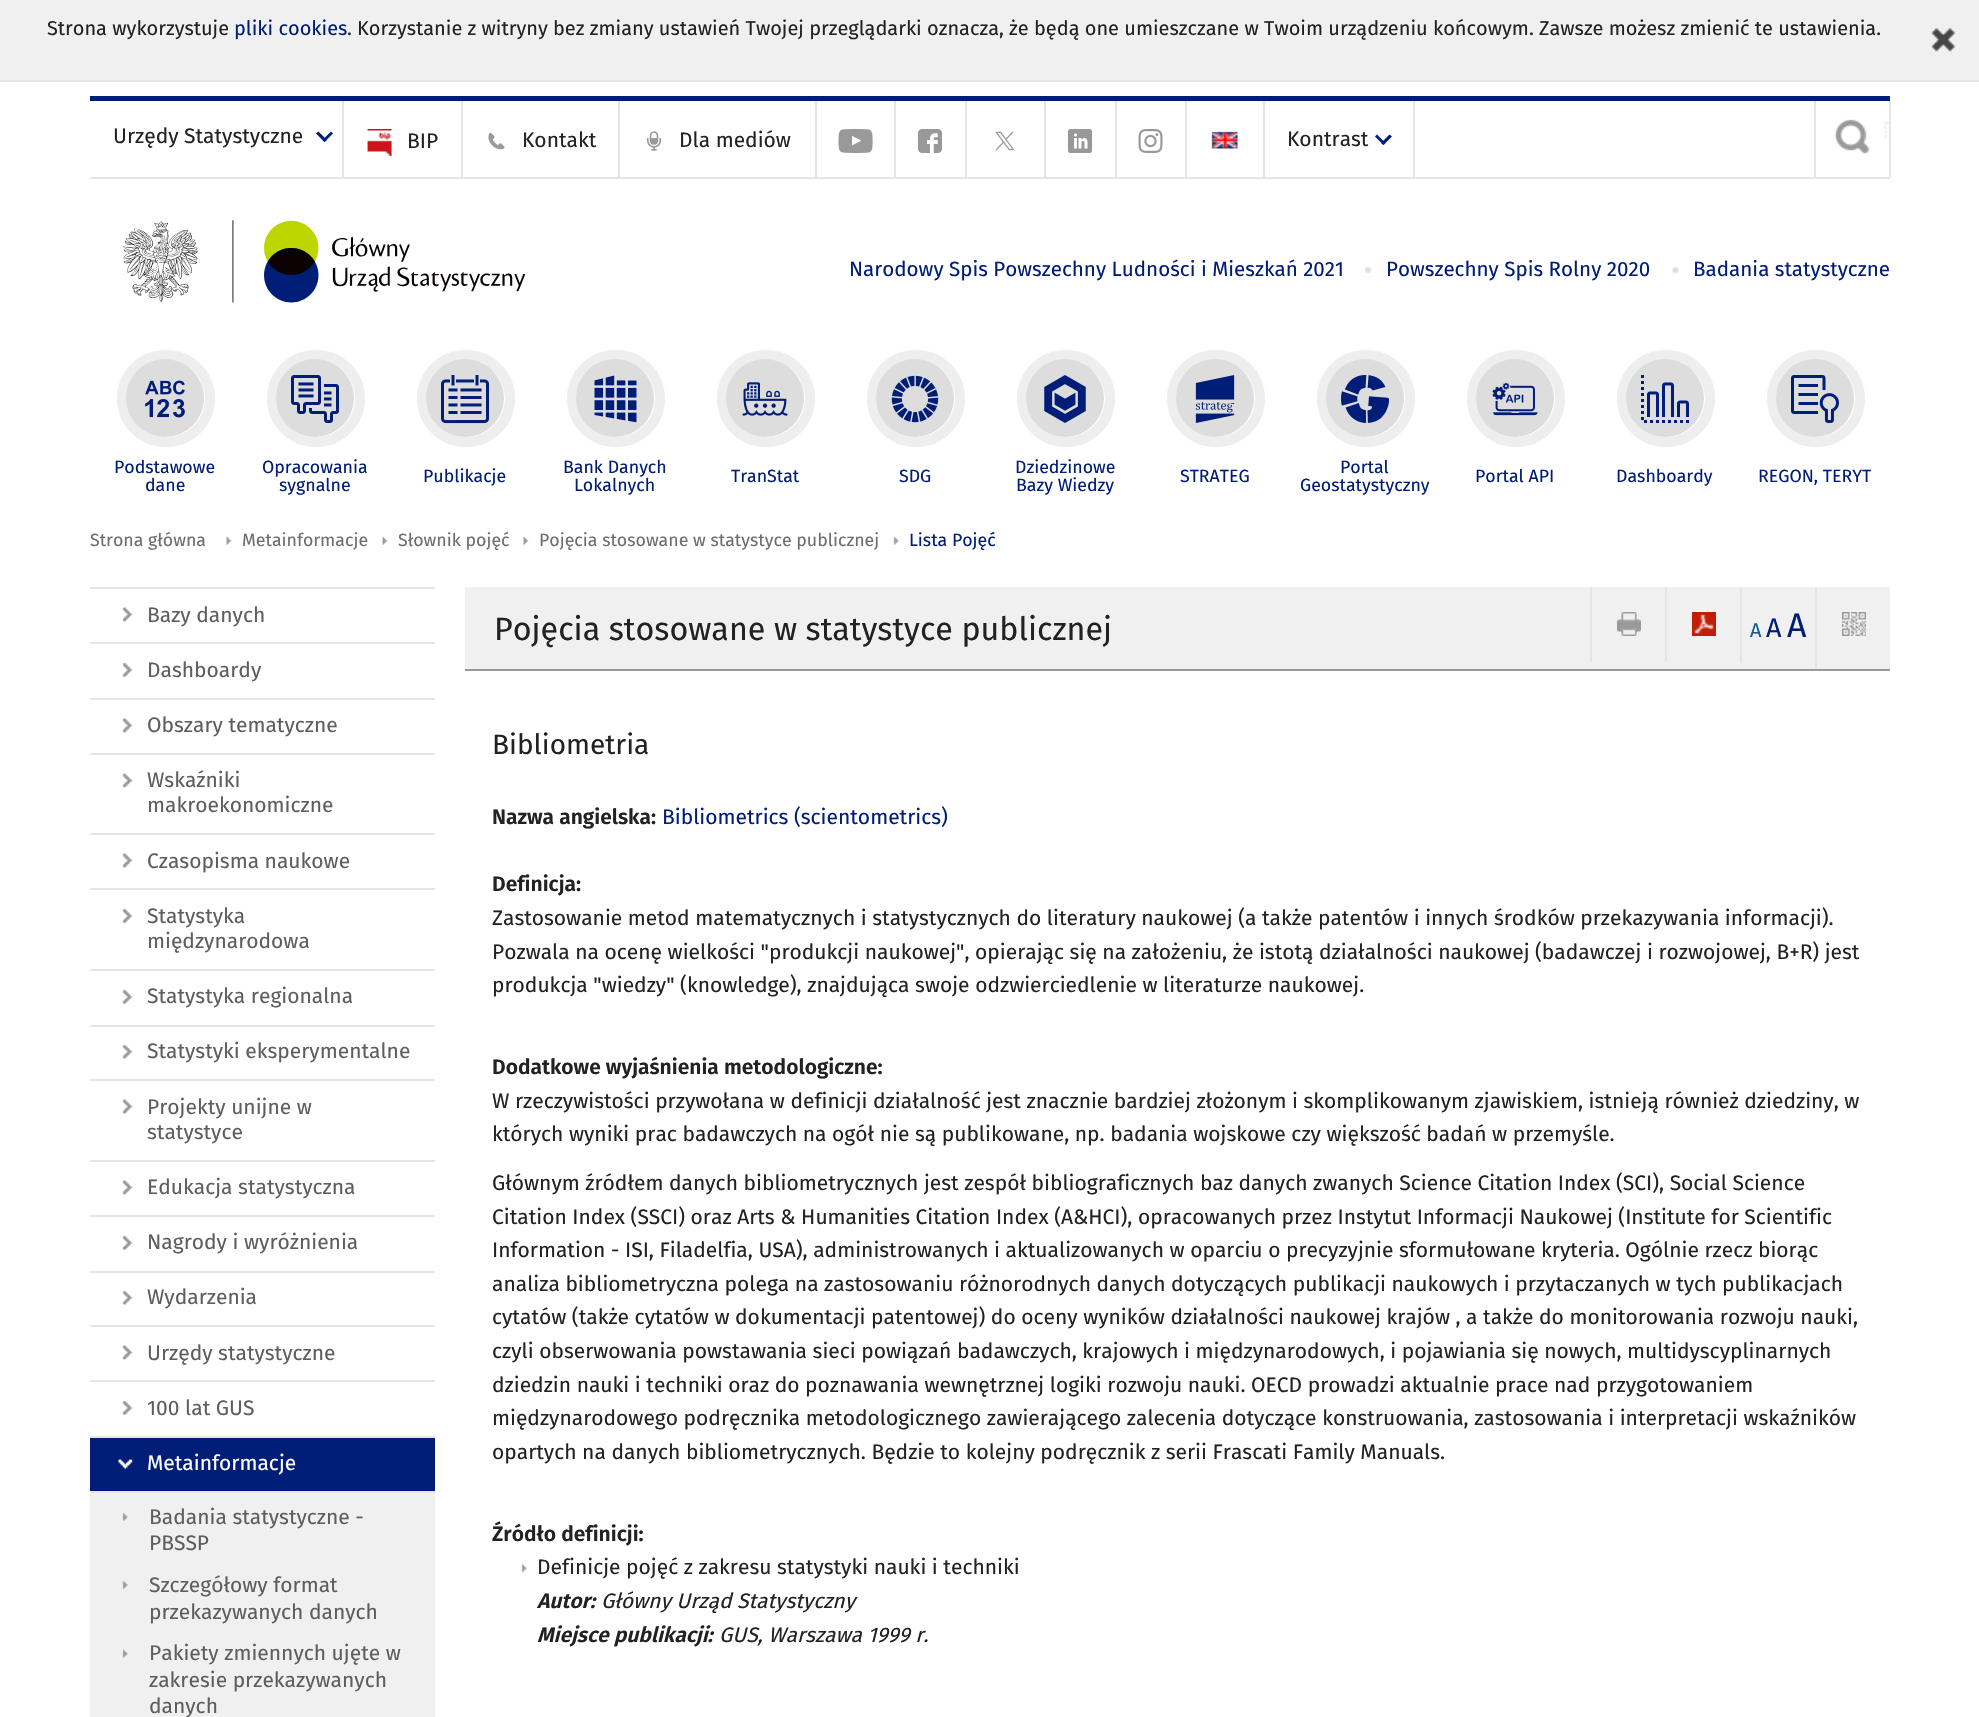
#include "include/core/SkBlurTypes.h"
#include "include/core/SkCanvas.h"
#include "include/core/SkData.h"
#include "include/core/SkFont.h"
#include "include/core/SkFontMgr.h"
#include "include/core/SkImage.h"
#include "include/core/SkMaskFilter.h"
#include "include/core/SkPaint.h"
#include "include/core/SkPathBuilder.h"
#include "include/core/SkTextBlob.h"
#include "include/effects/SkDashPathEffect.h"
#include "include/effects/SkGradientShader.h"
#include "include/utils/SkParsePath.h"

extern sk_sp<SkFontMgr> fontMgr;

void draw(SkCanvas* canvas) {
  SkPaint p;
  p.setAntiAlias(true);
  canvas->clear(SK_ColorWHITE);
  p.setColor(SkColorSetRGB(240, 240, 240));
  canvas->drawRect(SkRect::MakeLTRB(0, 0, 1979, 80), p);
  p.setColor(SkColorSetRGB(229, 229, 229));
  canvas->drawRect(SkRect::MakeLTRB(0, 80, 1979, 82), p);
  canvas->drawImageRect(SkImages::DeferredFromEncodedData(SkData::MakeFromFileName("images/1.png")), SkRect::MakeLTRB(1931, 28, 1955, 52), SkSamplingOptions());
  p.setColor(SkColorSetRGB(0, 29, 119));
  canvas->drawRect(SkRect::MakeLTRB(90, 96, 1890, 101), p);
  p.setColor(SkColorSetRGB(229, 229, 229));
  canvas->drawRect(SkRect::MakeLTRB(90, 177, 1890, 179), p);
  canvas->drawRect(SkRect::MakeLTRB(342, 101, 344, 177), p);
  p.setColor(SkColorSetRGB(0, 29, 119));
  canvas->drawPath(SkPathBuilder().moveTo(331, 131.5f).lineTo(333, 133.5f).lineTo(324.5f, 142).lineTo(322.5f, 140).close().detach(), p);
  canvas->drawPath(SkPathBuilder().moveTo(318.5f, 131.5f).lineTo(327, 140).lineTo(324.5f, 142).lineTo(316, 133.5f).close().detach(), p);
  p.setColor(SkColorSetRGB(229, 229, 229));
  canvas->drawRect(SkRect::MakeLTRB(461, 101, 463, 177), p);
  canvas->drawImageRect(SkImages::DeferredFromEncodedData(SkData::MakeFromFileName("images/2.png")), SkRect::MakeLTRB(367, 129, 392, 156), SkSamplingOptions());
  canvas->drawRect(SkRect::MakeLTRB(618, 101, 620, 177), p);
  canvas->drawImageRect(SkImages::DeferredFromEncodedData(SkData::MakeFromFileName("images/3.png")), SkRect::MakeLTRB(488, 132, 505, 150), SkSamplingOptions());
  canvas->drawRect(SkRect::MakeLTRB(815, 101, 817, 177), p);
  canvas->drawImageRect(SkImages::DeferredFromEncodedData(SkData::MakeFromFileName("images/4.png")), SkRect::MakeLTRB(646, 131, 662, 151), SkSamplingOptions());
  canvas->drawRect(SkRect::MakeLTRB(894, 101, 896, 177), p);
  canvas->drawImageRect(SkImages::DeferredFromEncodedData(SkData::MakeFromFileName("images/5.png")), SkRect::MakeLTRB(838, 129, 873, 153), SkSamplingOptions());
  canvas->drawRect(SkRect::MakeLTRB(965, 101, 967, 177), p);
  canvas->drawImageRect(SkImages::DeferredFromEncodedData(SkData::MakeFromFileName("images/6.png")), SkRect::MakeLTRB(918, 129, 942, 153), SkSamplingOptions());
  canvas->drawRect(SkRect::MakeLTRB(1044, 101, 1046, 177), p);
  canvas->drawImageRect(SkImages::DeferredFromEncodedData(SkData::MakeFromFileName("images/7.png")), SkRect::MakeLTRB(995, 131, 1015, 151), SkSamplingOptions());
  canvas->drawRect(SkRect::MakeLTRB(1115, 101, 1117, 177), p);
  canvas->drawImageRect(SkImages::DeferredFromEncodedData(SkData::MakeFromFileName("images/8.png")), SkRect::MakeLTRB(1068, 129, 1092, 153), SkSamplingOptions());
  canvas->drawRect(SkRect::MakeLTRB(1185, 101, 1187, 177), p);
  canvas->drawImageRect(SkImages::DeferredFromEncodedData(SkData::MakeFromFileName("images/9.png")), SkRect::MakeLTRB(1138, 129, 1163, 153), SkSamplingOptions());
  canvas->drawRect(SkRect::MakeLTRB(1263, 101, 1265, 177), p);
  canvas->drawImageRect(SkImages::DeferredFromEncodedData(SkData::MakeFromFileName("images/10.png")), SkRect::MakeLTRB(1211, 131, 1238, 149), SkSamplingOptions());
  canvas->drawRect(SkRect::MakeLTRB(1413, 101, 1415, 177), p);
  p.setColor(SkColorSetRGB(0, 29, 119));
  canvas->drawPath(SkPathBuilder().moveTo(1389.5f, 134.5f).lineTo(1392, 136.5f).lineTo(1383.5f, 145).lineTo(1381, 143).close().detach(), p);
  canvas->drawPath(SkPathBuilder().moveTo(1377, 134.5f).lineTo(1385.5f, 143).lineTo(1383.5f, 145).lineTo(1375, 136.5f).close().detach(), p);
  canvas->drawImageRect(SkImages::DeferredFromEncodedData(SkData::MakeFromFileName("images/11.png")), SkRect::MakeLTRB(1834, 119, 1889, 154), SkSamplingOptions());
  p.setColor(SkColorSetRGB(229, 229, 229));
  canvas->drawRect(SkRect::MakeLTRB(1889, 101, 1891, 177), p);
  canvas->drawRect(SkRect::MakeLTRB(1814, 101, 1816, 177), p);
  canvas->drawImageRect(SkImages::DeferredFromEncodedData(SkData::MakeFromFileName("images/12.png")), SkRect::MakeLTRB(123, 220, 526, 303), SkSamplingOptions());
  canvas->drawImageRect(SkImages::DeferredFromEncodedData(SkData::MakeFromFileName("images/13.png")), SkRect::MakeLTRB(1365, 266, 1372, 274), SkSamplingOptions());
  canvas->drawImageRect(SkImages::DeferredFromEncodedData(SkData::MakeFromFileName("images/14.png")), SkRect::MakeLTRB(1672, 266, 1679, 274), SkSamplingOptions());
  p.setStyle(SkPaint::kStroke_Style);
  p.setStrokeWidth(10);
  p.setColor(SkColorSetRGB(238, 238, 238));
  canvas->drawRoundRect(SkRect::MakeLTRB(122, 355, 210, 442), 43.5f, 43.5f, p);
  p.setStyle(SkPaint::kFill_Style);
  p.setColor(SkColorSetRGB(221, 221, 221));
  canvas->drawCircle(165, 398, 39, p);
  canvas->drawImageRect(SkImages::DeferredFromEncodedData(SkData::MakeFromFileName("images/15.png")), SkRect::MakeLTRB(145, 380, 185, 418), SkSamplingOptions());
  p.setStyle(SkPaint::kStroke_Style);
  p.setColor(SkColorSetRGB(238, 238, 238));
  canvas->drawRoundRect(SkRect::MakeLTRB(272, 355, 360, 442), 43.5f, 43.5f, p);
  p.setStyle(SkPaint::kFill_Style);
  p.setColor(SkColorSetRGB(221, 221, 221));
  canvas->drawCircle(315, 398, 39, p);
  canvas->drawImageRect(SkImages::DeferredFromEncodedData(SkData::MakeFromFileName("images/16.png")), SkRect::MakeLTRB(291, 375, 339, 423), SkSamplingOptions());
  p.setStyle(SkPaint::kStroke_Style);
  p.setColor(SkColorSetRGB(238, 238, 238));
  canvas->drawRoundRect(SkRect::MakeLTRB(422, 355, 510, 442), 43.5f, 43.5f, p);
  p.setStyle(SkPaint::kFill_Style);
  p.setColor(SkColorSetRGB(221, 221, 221));
  canvas->drawCircle(465, 398, 39, p);
  canvas->drawImageRect(SkImages::DeferredFromEncodedData(SkData::MakeFromFileName("images/17.png")), SkRect::MakeLTRB(441, 375, 489, 424), SkSamplingOptions());
  p.setStyle(SkPaint::kStroke_Style);
  p.setColor(SkColorSetRGB(238, 238, 238));
  canvas->drawRoundRect(SkRect::MakeLTRB(572, 355, 660, 442), 43.5f, 43.5f, p);
  p.setStyle(SkPaint::kFill_Style);
  p.setColor(SkColorSetRGB(221, 221, 221));
  canvas->drawCircle(615, 398, 39, p);
  canvas->drawImageRect(SkImages::DeferredFromEncodedData(SkData::MakeFromFileName("images/18.png")), SkRect::MakeLTRB(594, 375, 637, 423), SkSamplingOptions());
  p.setStyle(SkPaint::kStroke_Style);
  p.setColor(SkColorSetRGB(238, 238, 238));
  canvas->drawRoundRect(SkRect::MakeLTRB(722, 355, 810, 442), 43.5f, 43.5f, p);
  p.setStyle(SkPaint::kFill_Style);
  p.setColor(SkColorSetRGB(221, 221, 221));
  canvas->drawCircle(765, 398, 39, p);
  canvas->drawImageRect(SkImages::DeferredFromEncodedData(SkData::MakeFromFileName("images/19.png")), SkRect::MakeLTRB(742, 382, 788, 416), SkSamplingOptions());
  p.setStyle(SkPaint::kStroke_Style);
  p.setColor(SkColorSetRGB(238, 238, 238));
  canvas->drawRoundRect(SkRect::MakeLTRB(872, 355, 960, 442), 43.5f, 43.5f, p);
  p.setStyle(SkPaint::kFill_Style);
  p.setColor(SkColorSetRGB(221, 221, 221));
  canvas->drawCircle(915, 398, 39, p);
  canvas->drawImageRect(SkImages::DeferredFromEncodedData(SkData::MakeFromFileName("images/20.png")), SkRect::MakeLTRB(891, 375, 939, 423), SkSamplingOptions());
  p.setStyle(SkPaint::kStroke_Style);
  p.setColor(SkColorSetRGB(238, 238, 238));
  canvas->drawRoundRect(SkRect::MakeLTRB(1022, 355, 1110, 442), 43.5f, 43.5f, p);
  p.setStyle(SkPaint::kFill_Style);
  p.setColor(SkColorSetRGB(221, 221, 221));
  canvas->drawCircle(1065, 398, 39, p);
  canvas->drawImageRect(SkImages::DeferredFromEncodedData(SkData::MakeFromFileName("images/21.png")), SkRect::MakeLTRB(1044, 375, 1086, 423), SkSamplingOptions());
  p.setStyle(SkPaint::kStroke_Style);
  p.setColor(SkColorSetRGB(238, 238, 238));
  canvas->drawRoundRect(SkRect::MakeLTRB(1172, 355, 1260, 442), 43.5f, 43.5f, p);
  p.setStyle(SkPaint::kFill_Style);
  p.setColor(SkColorSetRGB(221, 221, 221));
  canvas->drawCircle(1215, 398, 39, p);
  canvas->drawImageRect(SkImages::DeferredFromEncodedData(SkData::MakeFromFileName("images/22.png")), SkRect::MakeLTRB(1195, 375, 1235, 423), SkSamplingOptions());
  p.setStyle(SkPaint::kStroke_Style);
  p.setColor(SkColorSetRGB(238, 238, 238));
  canvas->drawRoundRect(SkRect::MakeLTRB(1322, 355, 1410, 442), 43.5f, 43.5f, p);
  p.setStyle(SkPaint::kFill_Style);
  p.setColor(SkColorSetRGB(221, 221, 221));
  canvas->drawCircle(1365, 398, 39, p);
  canvas->drawImageRect(SkImages::DeferredFromEncodedData(SkData::MakeFromFileName("images/23.png")), SkRect::MakeLTRB(1341, 375, 1389, 423), SkSamplingOptions());
  p.setStyle(SkPaint::kStroke_Style);
  p.setColor(SkColorSetRGB(238, 238, 238));
  canvas->drawRoundRect(SkRect::MakeLTRB(1472, 355, 1560, 442), 43.5f, 43.5f, p);
  p.setStyle(SkPaint::kFill_Style);
  p.setColor(SkColorSetRGB(221, 221, 221));
  canvas->drawCircle(1515, 398, 39, p);
  canvas->drawImageRect(SkImages::DeferredFromEncodedData(SkData::MakeFromFileName("images/24.png")), SkRect::MakeLTRB(1492, 382, 1538, 416), SkSamplingOptions());
  p.setStyle(SkPaint::kStroke_Style);
  p.setColor(SkColorSetRGB(238, 238, 238));
  canvas->drawRoundRect(SkRect::MakeLTRB(1622, 355, 1710, 442), 43.5f, 43.5f, p);
  p.setStyle(SkPaint::kFill_Style);
  p.setColor(SkColorSetRGB(221, 221, 221));
  canvas->drawCircle(1665, 398, 39, p);
  canvas->drawImageRect(SkImages::DeferredFromEncodedData(SkData::MakeFromFileName("images/25.png")), SkRect::MakeLTRB(1641, 375, 1689, 423), SkSamplingOptions());
  p.setStyle(SkPaint::kStroke_Style);
  p.setColor(SkColorSetRGB(238, 238, 238));
  canvas->drawRoundRect(SkRect::MakeLTRB(1772, 355, 1860, 442), 43.5f, 43.5f, p);
  p.setStyle(SkPaint::kFill_Style);
  p.setColor(SkColorSetRGB(221, 221, 221));
  canvas->drawCircle(1815, 398, 39, p);
  canvas->drawImageRect(SkImages::DeferredFromEncodedData(SkData::MakeFromFileName("images/26.png")), SkRect::MakeLTRB(1791, 375, 1839, 423), SkSamplingOptions());
  canvas->drawImageRect(SkImages::DeferredFromEncodedData(SkData::MakeFromFileName("images/27.png")), SkRect::MakeLTRB(226, 536, 232, 545), SkSamplingOptions());
  canvas->drawImageRect(SkImages::DeferredFromEncodedData(SkData::MakeFromFileName("images/28.png")), SkRect::MakeLTRB(382, 536, 388, 545), SkSamplingOptions());
  canvas->drawImageRect(SkImages::DeferredFromEncodedData(SkData::MakeFromFileName("images/27.png")), SkRect::MakeLTRB(523, 536, 529, 545), SkSamplingOptions());
  canvas->drawImageRect(SkImages::DeferredFromEncodedData(SkData::MakeFromFileName("images/29.png")), SkRect::MakeLTRB(893, 536, 899, 545), SkSamplingOptions());
  canvas->drawImageRect(SkImages::DeferredFromEncodedData(SkData::MakeFromFileName("images/30.png")), SkRect::MakeLTRB(122, 607, 133, 622), SkSamplingOptions());
  p.setColor(SkColorSetRGB(229, 229, 229));
  canvas->drawRect(SkRect::MakeLTRB(90, 587, 435, 589), p);
  canvas->drawRect(SkRect::MakeLTRB(90, 642, 435, 644), p);
  canvas->drawImageRect(SkImages::DeferredFromEncodedData(SkData::MakeFromFileName("images/31.png")), SkRect::MakeLTRB(122, 662, 133, 677), SkSamplingOptions());
  canvas->drawRect(SkRect::MakeLTRB(90, 698, 435, 700), p);
  canvas->drawImageRect(SkImages::DeferredFromEncodedData(SkData::MakeFromFileName("images/30.png")), SkRect::MakeLTRB(122, 718, 133, 733), SkSamplingOptions());
  canvas->drawRect(SkRect::MakeLTRB(90, 753, 435, 755), p);
  canvas->drawImageRect(SkImages::DeferredFromEncodedData(SkData::MakeFromFileName("images/32.png")), SkRect::MakeLTRB(122, 773, 133, 788), SkSamplingOptions());
  canvas->drawRect(SkRect::MakeLTRB(90, 833, 435, 835), p);
  canvas->drawImageRect(SkImages::DeferredFromEncodedData(SkData::MakeFromFileName("images/30.png")), SkRect::MakeLTRB(122, 853, 133, 868), SkSamplingOptions());
  canvas->drawRect(SkRect::MakeLTRB(90, 888, 435, 890), p);
  canvas->drawImageRect(SkImages::DeferredFromEncodedData(SkData::MakeFromFileName("images/33.png")), SkRect::MakeLTRB(122, 908, 133, 924), SkSamplingOptions());
  canvas->drawRect(SkRect::MakeLTRB(90, 969, 435, 971), p);
  canvas->drawImageRect(SkImages::DeferredFromEncodedData(SkData::MakeFromFileName("images/31.png")), SkRect::MakeLTRB(122, 989, 133, 1004), SkSamplingOptions());
  canvas->drawRect(SkRect::MakeLTRB(90, 1025, 435, 1027), p);
  canvas->drawImageRect(SkImages::DeferredFromEncodedData(SkData::MakeFromFileName("images/34.png")), SkRect::MakeLTRB(122, 1044, 133, 1059), SkSamplingOptions());
  canvas->drawRect(SkRect::MakeLTRB(90, 1079, 435, 1081), p);
  canvas->drawImageRect(SkImages::DeferredFromEncodedData(SkData::MakeFromFileName("images/35.png")), SkRect::MakeLTRB(122, 1099, 133, 1114), SkSamplingOptions());
  canvas->drawRect(SkRect::MakeLTRB(90, 1160, 435, 1162), p);
  canvas->drawImageRect(SkImages::DeferredFromEncodedData(SkData::MakeFromFileName("images/30.png")), SkRect::MakeLTRB(122, 1180, 133, 1195), SkSamplingOptions());
  canvas->drawRect(SkRect::MakeLTRB(90, 1215, 435, 1217), p);
  canvas->drawImageRect(SkImages::DeferredFromEncodedData(SkData::MakeFromFileName("images/31.png")), SkRect::MakeLTRB(122, 1235, 133, 1250), SkSamplingOptions());
  canvas->drawRect(SkRect::MakeLTRB(90, 1271, 435, 1273), p);
  canvas->drawImageRect(SkImages::DeferredFromEncodedData(SkData::MakeFromFileName("images/34.png")), SkRect::MakeLTRB(122, 1290, 133, 1305), SkSamplingOptions());
  canvas->drawRect(SkRect::MakeLTRB(90, 1325, 435, 1327), p);
  canvas->drawImageRect(SkImages::DeferredFromEncodedData(SkData::MakeFromFileName("images/30.png")), SkRect::MakeLTRB(122, 1345, 133, 1360), SkSamplingOptions());
  canvas->drawRect(SkRect::MakeLTRB(90, 1380, 435, 1382), p);
  canvas->drawImageRect(SkImages::DeferredFromEncodedData(SkData::MakeFromFileName("images/31.png")), SkRect::MakeLTRB(122, 1400, 133, 1415), SkSamplingOptions());
  p.setColor(SkColorSetRGB(0, 29, 119));
  canvas->drawRect(SkRect::MakeLTRB(90, 1438, 435, 1491), p);
  canvas->drawImageRect(SkImages::DeferredFromEncodedData(SkData::MakeFromFileName("images/36.png")), SkRect::MakeLTRB(118, 1459, 133, 1469), SkSamplingOptions());
  p.setColor(SkColorSetRGB(229, 229, 229));
  canvas->drawRect(SkRect::MakeLTRB(90, 1436, 435, 1438), p);
  canvas->drawRect(SkRect::MakeLTRB(90, 1491, 435, 1493), p);
  p.setColor(SkColorSetRGB(240, 240, 240));
  canvas->drawRect(SkRect::MakeLTRB(90, 1493, 435, 1717), p);
  canvas->drawImageRect(SkImages::DeferredFromEncodedData(SkData::MakeFromFileName("images/37.png")), SkRect::MakeLTRB(122, 1513, 128, 1521), SkSamplingOptions());
  canvas->drawImageRect(SkImages::DeferredFromEncodedData(SkData::MakeFromFileName("images/38.png")), SkRect::MakeLTRB(122, 1581, 128, 1590), SkSamplingOptions());
  canvas->drawImageRect(SkImages::DeferredFromEncodedData(SkData::MakeFromFileName("images/39.png")), SkRect::MakeLTRB(122, 1649, 128, 1658), SkSamplingOptions());
  canvas->drawRect(SkRect::MakeLTRB(465, 587, 1890, 669), p);
  p.setColor(SkColorSetRGB(154, 154, 154));
  canvas->drawRect(SkRect::MakeLTRB(465, 669, 1890, 671), p);
  p.setColor(SkColorSetRGB(229, 229, 229));
  canvas->drawRect(SkRect::MakeLTRB(1590, 587, 1592, 662), p);
  canvas->drawImageRect(SkImages::DeferredFromEncodedData(SkData::MakeFromFileName("images/40.png")), SkRect::MakeLTRB(1617, 612, 1641, 636), SkSamplingOptions());
  canvas->drawRect(SkRect::MakeLTRB(1665, 587, 1667, 662), p);
  canvas->drawImageRect(SkImages::DeferredFromEncodedData(SkData::MakeFromFileName("images/41.png")), SkRect::MakeLTRB(1692, 612, 1716, 636), SkSamplingOptions());
  canvas->drawRect(SkRect::MakeLTRB(1740, 587, 1742, 663), p);
  canvas->drawRect(SkRect::MakeLTRB(1815, 587, 1817, 669), p);
  canvas->drawImageRect(SkImages::DeferredFromEncodedData(SkData::MakeFromFileName("images/42.png")), SkRect::MakeLTRB(1842, 612, 1866, 636), SkSamplingOptions());
  canvas->drawImageRect(SkImages::DeferredFromEncodedData(SkData::MakeFromFileName("images/43.png")), SkRect::MakeLTRB(521, 1564, 527, 1573), SkSamplingOptions());
  SkFont font1(fontMgr->matchFamilyStyle("Fira Sans", SkFontStyle::Normal()), 19.95f);
  font1.setSubpixel(true);
  p.setColor(SkColorSetRGB(34, 34, 34));
  canvas->drawString("Strona wykorzystuje", 47, 35, font1, p);
  p.setColor(SkColorSetRGB(0, 29, 119));
  canvas->drawString("pliki cookies", 234, 35, font1, p);
  p.setColor(SkColorSetRGB(34, 34, 34));
  canvas->drawString(". Korzystanie z witryny bez zmiany ustawień Twojej przeglądarki oznacza, że będą one umieszczane w Twoim urządzeniu końcowym. Zawsze możesz zmienić te ustawienia.", 347, 35, font1, p);
  SkFont font2(fontMgr->matchFamilyStyle("Fira Sans", SkFontStyle::Normal()), 21);
  font2.setSubpixel(true);
  canvas->drawString("Urzędy Statystyczne", 113, 143, font2, p);
  canvas->drawString("BIP", 407, 148, font2, p);
  canvas->drawString("Kontakt", 522, 147, font2, p);
  canvas->drawString("Dla mediów", 679, 147, font2, p);
  canvas->drawString("Kontrast", 1287, 146, font2, p);
  SkFont font3(fontMgr->matchFamilyStyle("Fira Sans", SkFontStyle::Normal()), 20.6f);
  font3.setSubpixel(true);
  p.setColor(SkColorSetRGB(0, 29, 119));
  canvas->drawString("Narodowy Spis Powszechny Ludności i Mieszkań 2021", 849, 276, font3, p);
  canvas->drawString("Powszechny Spis Rolny 2020", 1386, 276, font3, p);
  canvas->drawString("Badania statystyczne", 1693, 276, font3, p);
  SkFont font4(fontMgr->matchFamilyStyle("Fira Sans", SkFontStyle::Normal()), 17.75f);
  font4.setSubpixel(true);
  canvas->drawString("Podstawowe", 114, 473, font4, p);
  canvas->drawString("dane", 145, 491, font4, p);
  canvas->drawString("Opracowania", 262, 473, font4, p);
  canvas->drawString("sygnalne", 279, 491, font4, p);
  canvas->drawString("Publikacje", 423, 482, font4, p);
  canvas->drawString("Bank Danych", 563, 473, font4, p);
  canvas->drawString("Lokalnych", 574, 491, font4, p);
  canvas->drawString("TranStat", 731, 482, font4, p);
  canvas->drawString("SDG", 899, 482, font4, p);
  canvas->drawString("Dziedzinowe", 1015, 473, font4, p);
  canvas->drawString("Bazy Wiedzy", 1016, 491, font4, p);
  canvas->drawString("STRATEG", 1180, 482, font4, p);
  canvas->drawString("Portal", 1340, 473, font4, p);
  canvas->drawString("Geostatystyczny", 1300, 491, font4, p);
  canvas->drawString("Portal API", 1475, 482, font4, p);
  canvas->drawString("Dashboardy", 1616, 482, font4, p);
  canvas->drawString("REGON, TERYT", 1758, 482, font4, p);
  p.setColor(SkColorSetRGB(110, 110, 110));
  canvas->drawString("Strona główna", 90, 546, font4, p);
  canvas->drawString("Metainformacje", 242, 546, font4, p);
  canvas->drawString("Słownik pojęć", 398, 546, font4, p);
  canvas->drawString("Pojęcia stosowane w statystyce publicznej", 539, 546, font4, p);
  p.setColor(SkColorSetRGB(0, 29, 119));
  canvas->drawString("Lista Pojęć", 909, 546, font4, p);
  p.setColor(SkColorSetRGB(94, 94, 94));
  canvas->drawString("Bazy danych", 147, 622, font2, p);
  canvas->drawString("Dashboardy", 147, 677, font2, p);
  canvas->drawString("Obszary tematyczne", 147, 732, font2, p);
  canvas->drawString("Wskaźniki", 147, 787, font2, p);
  canvas->drawString("makroekonomiczne", 147, 812, font2, p);
  canvas->drawString("Czasopisma naukowe", 147, 868, font2, p);
  canvas->drawString("Statystyka", 147, 923, font2, p);
  canvas->drawString("międzynarodowa", 147, 948, font2, p);
  canvas->drawString("Statystyka regionalna", 147, 1003, font2, p);
  canvas->drawString("Statystyki eksperymentalne", 147, 1058, font2, p);
  canvas->drawString("Projekty unijne w", 147, 1114, font2, p);
  canvas->drawString("statystyce", 147, 1139, font2, p);
  canvas->drawString("Edukacja statystyczna", 147, 1194, font2, p);
  canvas->drawString("Nagrody i wyróżnienia", 147, 1249, font2, p);
  canvas->drawString("Wydarzenia", 147, 1304, font2, p);
  canvas->drawString("Urzędy statystyczne", 147, 1360, font2, p);
  canvas->drawString("100 lat GUS", 147, 1415, font2, p);
  p.setColor(SK_ColorWHITE);
  canvas->drawString("Metainformacje", 147, 1470, font2, p);
  p.setColor(SkColorSetRGB(94, 94, 94));
  canvas->drawString("Badania statystyczne -", 149, 1524, font2, p);
  canvas->drawString("PBSSP", 149, 1550, font2, p);
  canvas->drawString("Szczegółowy format", 149, 1592, font2, p);
  canvas->drawString("przekazywanych danych", 149, 1619, font2, p);
  canvas->drawString("Pakiety zmiennych ujęte w", 149, 1660, font2, p);
  canvas->drawString("zakresie przekazywanych", 149, 1687, font2, p);
  canvas->drawString("danych", 149, 1713, font2, p);
  SkFont font5(fontMgr->matchFamilyStyle("Fira Sans", SkFontStyle::Normal()), 32.25f);
  font5.setSubpixel(true);
  p.setColor(SkColorSetRGB(34, 34, 34));
  canvas->drawString("Pojęcia stosowane w statystyce publicznej", 494, 640, font5, p);
  SkFont font6(fontMgr->matchFamilyStyle("Fira Sans", SkFontStyle::Normal()), 20);
  font6.setSubpixel(true);
  p.setColor(SkColorSetRGB(15, 92, 141));
  canvas->drawString("A", 1750, 637, font6, p);
  SkFont font7(fontMgr->matchFamilyStyle("Fira Sans", SkFontStyle::Normal()), 27);
  font7.setSubpixel(true);
  p.setColor(SkColorSetRGB(0, 29, 119));
  canvas->drawString("A", 1766, 637, font7, p);
  SkFont font8(fontMgr->matchFamilyStyle("Fira Sans", SkFontStyle::Normal()), 34);
  font8.setSubpixel(true);
  canvas->drawString("A", 1787, 637, font8, p);
  SkFont font9(fontMgr->matchFamilyStyle("Fira Sans", SkFontStyle::Normal()), 28);
  font9.setSubpixel(true);
  p.setColor(SkColorSetRGB(34, 34, 34));
  canvas->drawString("Bibliometria", 492, 754, font9, p);
  SkFont font10(fontMgr->matchFamilyStyle("Fira Sans", SkFontStyle(600, SkFontStyle::kNormal_Width, SkFontStyle::kUpright_Slant)), 21);
  font10.setSubpixel(true);
  canvas->drawString("Nazwa angielska:", 492, 824, font10, p);
  p.setColor(SkColorSetRGB(0, 29, 119));
  canvas->drawString("Bibliometrics (scientometrics)", 662, 824, font2, p);
  p.setColor(SkColorSetRGB(34, 34, 34));
  canvas->drawString("Definicja:", 492, 891, font10, p);
  canvas->drawString("Zastosowanie metod matematycznych i statystycznych do literatury naukowej (a także patentów i innych środków przekazywania informacji).", 492, 925, font2, p);
  canvas->drawString("Pozwala na ocenę wielkości \"produkcji naukowej\", opierając się na założeniu, że istotą działalności naukowej (badawczej i rozwojowej, B+R) jest", 492, 959, font2, p);
  canvas->drawString("produkcja \"wiedzy\" (knowledge), znajdująca swoje odzwierciedlenie w literaturze naukowej.", 492, 992, font2, p);
  canvas->drawString("Dodatkowe wyjaśnienia metodologiczne:", 492, 1074, font10, p);
  canvas->drawString("W rzeczywistości przywołana w definicji działalność jest znacznie bardziej złożonym i skomplikowanym zjawiskiem, istnieją również dziedziny, w", 492, 1108, font2, p);
  canvas->drawString("których wyniki prac badawczych na ogół nie są publikowane, np. badania wojskowe czy większość badań w przemyśle.", 492, 1141, font2, p);
  canvas->drawString("Głównym źródłem danych bibliometrycznych jest zespół bibliograficznych baz danych zwanych Science Citation Index (SCI), Social Science", 492, 1190, font2, p);
  canvas->drawString("Citation Index (SSCI) oraz Arts & Humanities Citation Index (A&HCI), opracowanych przez Instytut Informacji Naukowej (Institute for Scientific", 492, 1224, font2, p);
  canvas->drawString("Information - ISI, Filadelfia, USA), administrowanych i aktualizowanych w oparciu o precyzyjnie sformułowane kryteria. Ogólnie rzecz biorąc", 492, 1257, font2, p);
  canvas->drawString("analiza bibliometryczna polega na zastosowaniu różnorodnych danych dotyczących publikacji naukowych i przytaczanych w tych publikacjach", 492, 1291, font2, p);
  canvas->drawString("cytatów (także cytatów w dokumentacji patentowej) do oceny wyników działalności naukowej krajów , a także do monitorowania rozwoju nauki,", 492, 1324, font2, p);
  canvas->drawString("czyli obserwowania powstawania sieci powiązań badawczych, krajowych i międzynarodowych, i pojawiania się nowych, multidyscyplinarnych", 492, 1358, font2, p);
  canvas->drawString("dziedzin nauki i techniki oraz do poznawania wewnętrznej logiki rozwoju nauki. OECD prowadzi aktualnie prace nad przygotowaniem", 492, 1392, font2, p);
  canvas->drawString("międzynarodowego podręcznika metodologicznego zawierającego zalecenia dotyczące konstruowania, zastosowania i interpretacji wskaźników", 492, 1425, font2, p);
  canvas->drawString("opartych na danych bibliometrycznych. Będzie to kolejny podręcznik z serii Frascati Family Manuals.", 492, 1459, font2, p);
  canvas->drawString("Źródło definicji:", 492, 1541, font10, p);
  canvas->drawString("Definicje pojęć z zakresu statystyki nauki i techniki", 537, 1574, font2, p);
  SkFont font11(fontMgr->matchFamilyStyle("Fira Sans", SkFontStyle(600, SkFontStyle::kNormal_Width, SkFontStyle::kItalic_Slant)), 21);
  font11.setSubpixel(true);
  canvas->drawString("Autor:", 537, 1608, font11, p);
  SkFont font12(fontMgr->matchFamilyStyle("Fira Sans", SkFontStyle::Italic()), 21);
  font12.setSubpixel(true);
  canvas->drawString("Główny Urząd Statystyczny", 601, 1608, font12, p);
  canvas->drawString("Miejsce publikacji:", 537, 1642, font11, p);
  canvas->drawString("GUS, Warszawa 1999 r.", 719, 1642, font12, p);
}
